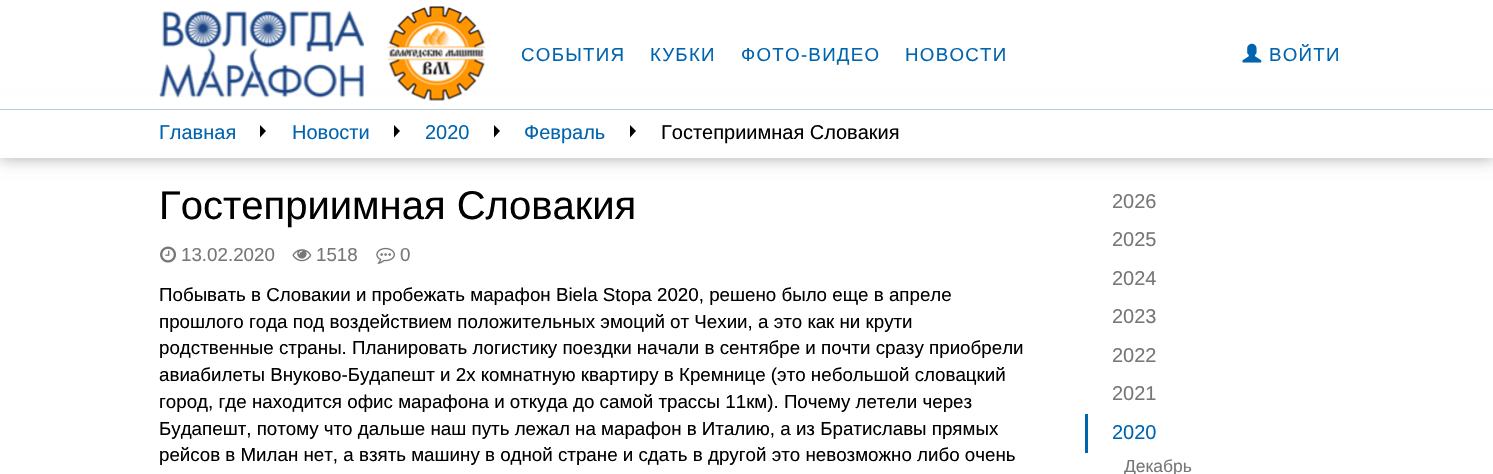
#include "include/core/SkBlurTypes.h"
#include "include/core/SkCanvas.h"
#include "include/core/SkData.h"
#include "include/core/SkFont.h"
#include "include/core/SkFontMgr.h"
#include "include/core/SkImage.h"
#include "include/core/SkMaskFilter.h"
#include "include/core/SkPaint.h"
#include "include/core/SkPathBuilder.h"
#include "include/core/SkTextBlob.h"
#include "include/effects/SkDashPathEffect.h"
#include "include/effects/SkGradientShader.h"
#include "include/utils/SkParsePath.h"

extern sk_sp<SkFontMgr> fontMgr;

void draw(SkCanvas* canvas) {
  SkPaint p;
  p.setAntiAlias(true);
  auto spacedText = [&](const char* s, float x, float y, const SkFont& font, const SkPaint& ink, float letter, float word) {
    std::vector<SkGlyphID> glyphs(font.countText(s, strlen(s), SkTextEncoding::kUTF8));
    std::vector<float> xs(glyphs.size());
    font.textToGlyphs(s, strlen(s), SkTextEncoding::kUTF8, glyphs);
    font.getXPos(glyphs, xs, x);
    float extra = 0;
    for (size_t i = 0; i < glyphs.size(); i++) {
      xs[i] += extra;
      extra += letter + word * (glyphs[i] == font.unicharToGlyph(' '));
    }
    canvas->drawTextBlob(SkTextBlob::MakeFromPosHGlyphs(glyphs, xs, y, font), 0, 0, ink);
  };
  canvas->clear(SK_ColorWHITE);
  p.setColor(SkColorSetARGB(77, 0, 0, 0));
  p.setMaskFilter(SkMaskFilter::MakeBlur(kNormal_SkBlurStyle, 7.5f));
  canvas->drawRect(SkRect::MakeLTRB(0, 109, 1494, 159), p);
  p.setMaskFilter(nullptr);
  p.setColor(SK_ColorWHITE);
  canvas->drawRect(SkRect::MakeLTRB(0, 95, 1493, 109), p);
  p.setColor(SkColorSetRGB(187, 199, 218));
  canvas->drawRect(SkRect::MakeLTRB(0, 109, 1493, 110), p);
  canvas->drawImageRect(SkImages::DeferredFromEncodedData(SkData::MakeFromFileName("images/1.png")), SkRect::MakeLTRB(159, 10, 364, 98), SkSamplingOptions());
  canvas->drawImageRect(SkImages::DeferredFromEncodedData(SkData::MakeFromFileName("images/2.png")), SkRect::MakeLTRB(387, 5, 486, 101), SkSamplingOptions());
  canvas->drawImageRect(SkImages::DeferredFromEncodedData(SkData::MakeFromFileName("images/3.png")), SkRect::MakeLTRB(1242, 43, 1262, 63), SkSamplingOptions());
  p.setColor(SK_ColorWHITE);
  canvas->drawRect(SkRect::MakeLTRB(0, 110, 1493, 158), p);
  p.setColor(SK_ColorBLACK);
  canvas->drawPath(SkPathBuilder().moveTo(260, 137.5f).lineTo(260, 125).lineTo(266, 131).close().detach(), p);
  canvas->drawPath(SkPathBuilder().moveTo(394, 137.5f).lineTo(394, 125).lineTo(400, 131).close().detach(), p);
  canvas->drawPath(SkPathBuilder().moveTo(494, 137.5f).lineTo(494, 125).lineTo(500, 131).close().detach(), p);
  canvas->drawPath(SkPathBuilder().moveTo(630, 137.5f).lineTo(630, 125).lineTo(636, 131).close().detach(), p);
  p.setColor(SkColorSetRGB(0, 100, 175));
  canvas->drawRect(SkRect::MakeLTRB(1085, 414, 1088, 453), p);
  canvas->drawImageRect(SkImages::DeferredFromEncodedData(SkData::MakeFromFileName("images/4.png")), SkRect::MakeLTRB(160, 246, 177, 263), SkSamplingOptions());
  canvas->drawImageRect(SkImages::DeferredFromEncodedData(SkData::MakeFromFileName("images/5.png")), SkRect::MakeLTRB(292, 249, 312, 262), SkSamplingOptions());
  canvas->drawImageRect(SkImages::DeferredFromEncodedData(SkData::MakeFromFileName("images/6.png")), SkRect::MakeLTRB(376, 247, 395, 264), SkSamplingOptions());
  SkFont font1(fontMgr->matchFamilyStyle("Liberation Sans", SkFontStyle::Normal()), 18.75f);
  font1.setSubpixel(true);
  spacedText("СОБЫТИЯ", 521, 61, font1, p, 1.25f, 0);
  spacedText("КУБКИ", 650, 61, font1, p, 1.25f, 0);
  spacedText("ФОТО-ВИДЕО", 741, 61, font1, p, 1.25f, 0);
  spacedText("НОВОСТИ", 905, 61, font1, p, 1.25f, 0);
  spacedText("ВОЙТИ", 1269, 61, font1, p, 1.25f, 0);
  SkFont font2(fontMgr->matchFamilyStyle("Liberation Sans", SkFontStyle::Normal()), 20);
  font2.setSubpixel(true);
  canvas->drawString("Главная", 159, 139, font2, p);
  canvas->drawString("Новости", 292, 139, font2, p);
  canvas->drawString("2020", 425, 139, font2, p);
  canvas->drawString("Февраль", 524, 139, font2, p);
  p.setColor(SK_ColorBLACK);
  canvas->drawString("Гостеприимная Словакия", 661, 139, font2, p);
  p.setColor(SkColorSetRGB(119, 119, 119));
  canvas->drawString("2026", 1112, 208, font2, p);
  canvas->drawString("2025", 1112, 246, font2, p);
  canvas->drawString("2024", 1112, 285, font2, p);
  canvas->drawString("2023", 1112, 323, font2, p);
  canvas->drawString("2022", 1112, 362, font2, p);
  canvas->drawString("2021", 1112, 400, font2, p);
  p.setColor(SkColorSetRGB(0, 100, 175));
  canvas->drawString("2020", 1112, 439, font2, p);
  SkFont font3(fontMgr->matchFamilyStyle("Liberation Sans", SkFontStyle::Normal()), 17.5f);
  font3.setSubpixel(true);
  p.setColor(SkColorSetRGB(119, 119, 119));
  canvas->drawString("Декабрь", 1124, 472, font3, p);
  SkFont font4(fontMgr->matchFamilyStyle("Liberation Sans", SkFontStyle::Normal()), 40);
  font4.setSubpixel(true);
  p.setColor(SK_ColorBLACK);
  canvas->drawString("Гостеприимная Словакия", 159, 219, font4, p);
  p.setColor(SkColorSetRGB(119, 119, 119));
  canvas->drawString("13.02.2020", 181, 261, font1, p);
  canvas->drawString("1518", 316, 261, font1, p);
  canvas->drawString("0", 400, 261, font1, p);
  p.setColor(SK_ColorBLACK);
  canvas->drawString("Побывать в Словакии и пробежать марафон Biela Stopa 2020, решено было еще в апреле", 159, 301, font1, p);
  canvas->drawString("прошлого года под воздействием положительных эмоций от Чехии, а это как ни крути", 159, 328, font1, p);
  canvas->drawString("родственные страны. Планировать логистику поездки начали в сентябре и почти сразу приобрели", 159, 354, font1, p);
  canvas->drawString("авиабилеты Внуково-Будапешт и 2х комнатную квартиру в Кремнице (это небольшой словацкий", 159, 381, font1, p);
  canvas->drawString("город, где находится офис марафона и откуда до самой трассы 11км). Почему летели через", 159, 408, font1, p);
  canvas->drawString("Будапешт, потому что дальше наш путь лежал на марафон в Италию, а из Братиславы прямых", 159, 435, font1, p);
  canvas->drawString("рейсов в Милан нет, а взять машину в одной стране и сдать в другой это невозможно либо очень", 159, 461, font1, p);
}
